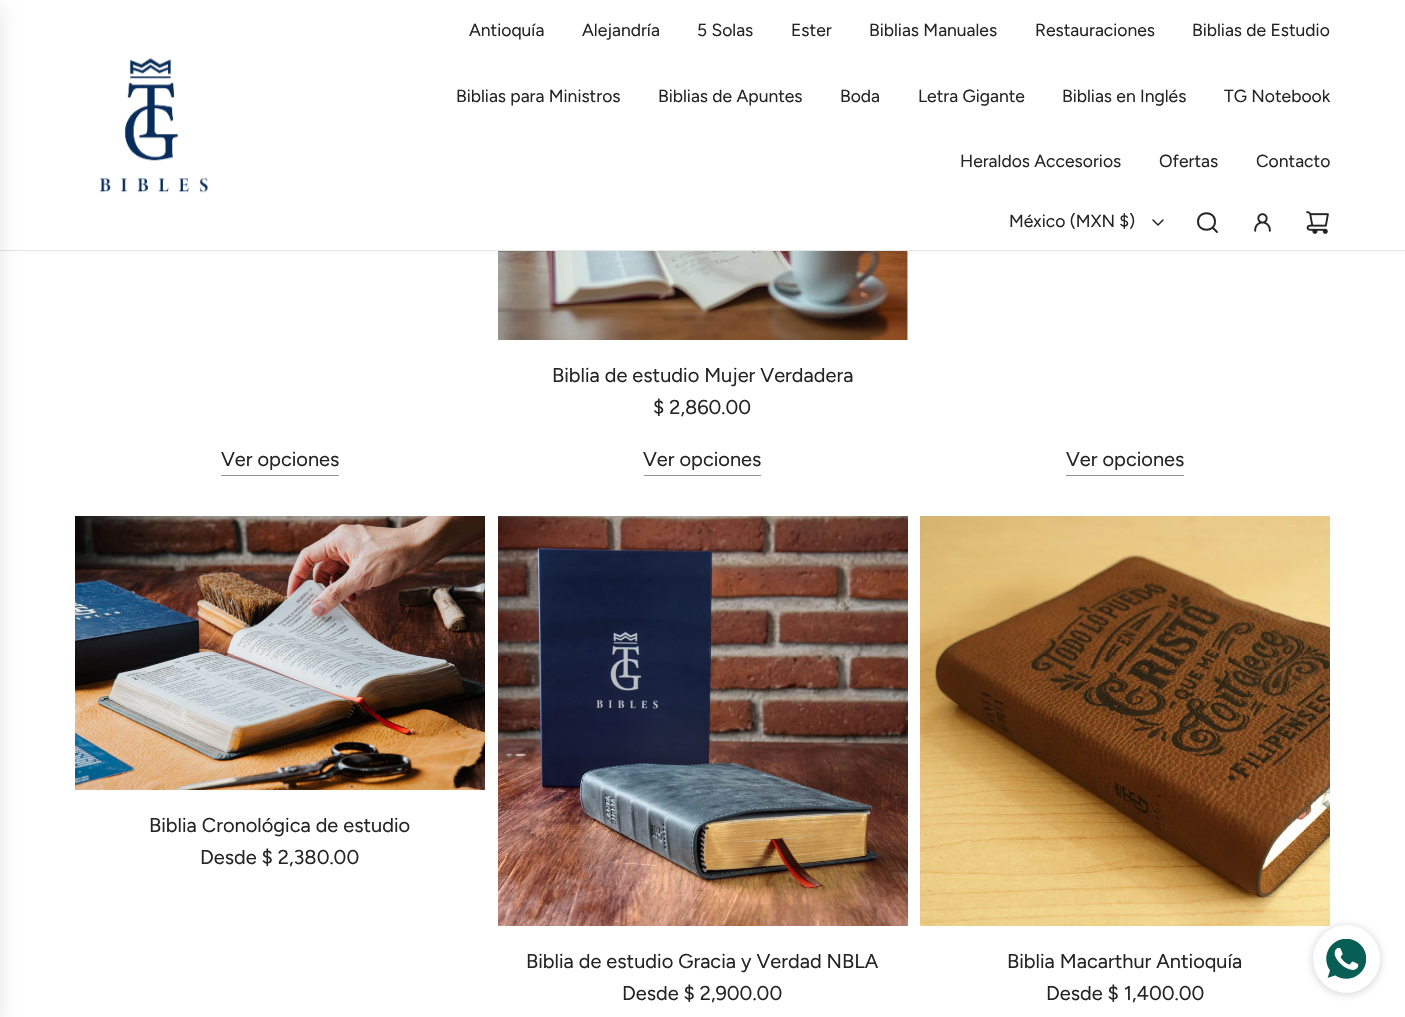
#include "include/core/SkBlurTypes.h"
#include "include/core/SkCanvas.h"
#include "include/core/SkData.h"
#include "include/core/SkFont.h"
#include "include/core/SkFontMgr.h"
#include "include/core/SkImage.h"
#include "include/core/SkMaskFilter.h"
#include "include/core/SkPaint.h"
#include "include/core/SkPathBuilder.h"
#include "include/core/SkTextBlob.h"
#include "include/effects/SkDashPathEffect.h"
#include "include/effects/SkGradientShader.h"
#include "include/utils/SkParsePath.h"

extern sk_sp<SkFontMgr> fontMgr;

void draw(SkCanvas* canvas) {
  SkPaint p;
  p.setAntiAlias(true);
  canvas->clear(SK_ColorWHITE);
  p.setColor(SkColorSetRGB(230, 229, 231));
  canvas->drawRect(SkRect::MakeLTRB(0, 250, 1405, 251), p);
  p.setColor(SkColorSetARGB(26, 0, 0, 0));
  p.setMaskFilter(SkMaskFilter::MakeBlur(kNormal_SkBlurStyle, 9.5f));
  canvas->drawRect(SkRect::MakeLTRB(-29, 6, 0, 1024), p);
  p.setMaskFilter(nullptr);
  canvas->drawImageRect(SkImages::DeferredFromEncodedData(SkData::MakeFromFileName("images/1.png")), SkRect::MakeLTRB(99, 58, 209, 193), SkSamplingOptions());
  p.setStyle(SkPaint::kStroke_Style);
  p.setStrokeWidth(1.5f);
  p.setStrokeCap(SkPaint::kRound_Cap);
  p.setStrokeJoin(SkPaint::kRound_Join);
  p.setColor(SkColorSetRGB(36, 36, 36));
  canvas->drawPath(SkPathBuilder().moveTo(1153, 220).lineTo(1158, 225).lineTo(1163, 220).detach(), p);
  p.setStrokeWidth(1.9f);
  canvas->drawPath(SkPathBuilder().moveTo(1212.5f, 227.5f).lineTo(1217, 232).moveTo(1198, 221.5f).cubicTo(1198, 232.5f, 1215, 232.5f, 1215, 221.5f).cubicTo(1215, 210.5f, 1198, 210.5f, 1198, 221.5f).close().detach(), p);
  canvas->drawImageRect(SkImages::DeferredFromEncodedData(SkData::MakeFromFileName("images/2.png")), SkRect::MakeLTRB(1254, 213, 1271, 232), SkSamplingOptions());
  canvas->drawImageRect(SkImages::DeferredFromEncodedData(SkData::MakeFromFileName("images/3.png")), SkRect::MakeLTRB(1306, 211, 1329, 234), SkSamplingOptions());
  p.setStyle(SkPaint::kFill_Style);
  p.setColor(SkColorSetRGB(146, 146, 146));
  canvas->drawRect(SkRect::MakeLTRB(221, 475, 339, 476), p);
  canvas->drawImageRect(SkImages::DeferredFromEncodedData(SkData::MakeFromFileName("images/4.png")), SkRect::MakeLTRB(498, 251, 908, 340), SkSamplingOptions());
  canvas->drawRect(SkRect::MakeLTRB(644, 475, 761, 476), p);
  canvas->drawRect(SkRect::MakeLTRB(1066, 475, 1184, 476), p);
  canvas->drawImageRect(SkImages::DeferredFromEncodedData(SkData::MakeFromFileName("images/5.png")), SkRect::MakeLTRB(75, 516, 485, 790), SkSamplingOptions());
  canvas->drawImageRect(SkImages::DeferredFromEncodedData(SkData::MakeFromFileName("images/6.png")), SkRect::MakeLTRB(498, 516, 908, 926), SkSamplingOptions());
  canvas->drawImageRect(SkImages::DeferredFromEncodedData(SkData::MakeFromFileName("images/7.png")), SkRect::MakeLTRB(920, 516, 1330, 926), SkSamplingOptions());
  p.setColor(SkColorSetARGB(51, 27, 27, 27));
  p.setMaskFilter(SkMaskFilter::MakeBlur(kNormal_SkBlurStyle, 4));
  canvas->drawRoundRect(SkRect::MakeLTRB(1313, 926, 1380, 994), 33.5f, 33.5f, p);
  p.setMaskFilter(nullptr);
  p.setColor(SK_ColorWHITE);
  canvas->drawRoundRect(SkRect::MakeLTRB(1313.5f, 925.5f, 1379.5f, 992.5f), 33, 33, p);
  p.setStyle(SkPaint::kStroke_Style);
  p.setStrokeWidth(1);
  p.setStrokeCap(SkPaint::kButt_Cap);
  p.setStrokeJoin(SkPaint::kMiter_Join);
  canvas->drawRoundRect(SkRect::MakeLTRB(1313.5f, 925.5f, 1379.5f, 992.5f), 33, 33, p);
  canvas->drawImageRect(SkImages::DeferredFromEncodedData(SkData::MakeFromFileName("images/8.png")), SkRect::MakeLTRB(1326, 939, 1366, 979), SkSamplingOptions());
  SkFont font1(fontMgr->matchFamilyStyle("Figtree", SkFontStyle::Normal()), 17.5f);
  font1.setSubpixel(true);
  p.setStyle(SkPaint::kFill_Style);
  p.setColor(SkColorSetRGB(36, 36, 36));
  canvas->drawString("Antioquía", 469, 36, font1, p);
  canvas->drawString("Alejandría", 582, 36, font1, p);
  canvas->drawString("5 Solas", 697, 36, font1, p);
  canvas->drawString("Ester", 791, 36, font1, p);
  canvas->drawString("Biblias Manuales", 869, 36, font1, p);
  canvas->drawString("Restauraciones", 1035, 36, font1, p);
  canvas->drawString("Biblias de Estudio", 1192, 36, font1, p);
  canvas->drawString("Biblias para Ministros", 456, 102, font1, p);
  canvas->drawString("Biblias de Apuntes", 658, 102, font1, p);
  canvas->drawString("Boda", 840, 102, font1, p);
  canvas->drawString("Letra Gigante", 918, 102, font1, p);
  canvas->drawString("Biblias en Inglés", 1062, 102, font1, p);
  canvas->drawString("TG Notebook", 1224, 102, font1, p);
  canvas->drawString("Heraldos Accesorios", 960, 167, font1, p);
  canvas->drawString("Ofertas", 1159, 167, font1, p);
  canvas->drawString("Contacto", 1256, 167, font1, p);
  canvas->drawString("México (MXN $)", 1009, 227, font1, p);
  SkFont font2(fontMgr->matchFamilyStyle("Figtree", SkFontStyle::Normal()), 20);
  font2.setSubpixel(true);
  canvas->drawString("Ver opciones", 221, 466, font2, p);
  canvas->drawString("Biblia de estudio Mujer Verdadera", 552, 382, font2, p);
  canvas->drawString("$ 2,860.00", 653, 414, font2, p);
  canvas->drawString("Ver opciones", 643, 466, font2, p);
  canvas->drawString("Ver opciones", 1066, 466, font2, p);
  canvas->drawString("Biblia Cronológica de estudio", 149, 832, font2, p);
  canvas->drawString("Desde $ 2,380.00", 200, 864, font2, p);
  canvas->drawString("Biblia de estudio Gracia y Verdad NBLA", 526, 968, font2, p);
  canvas->drawString("Desde $ 2,900.00", 622, 1000, font2, p);
  canvas->drawString("Biblia Macarthur Antioquía", 1007, 968, font2, p);
  canvas->drawString("Desde $ 1,400.00", 1046, 1000, font2, p);
}
